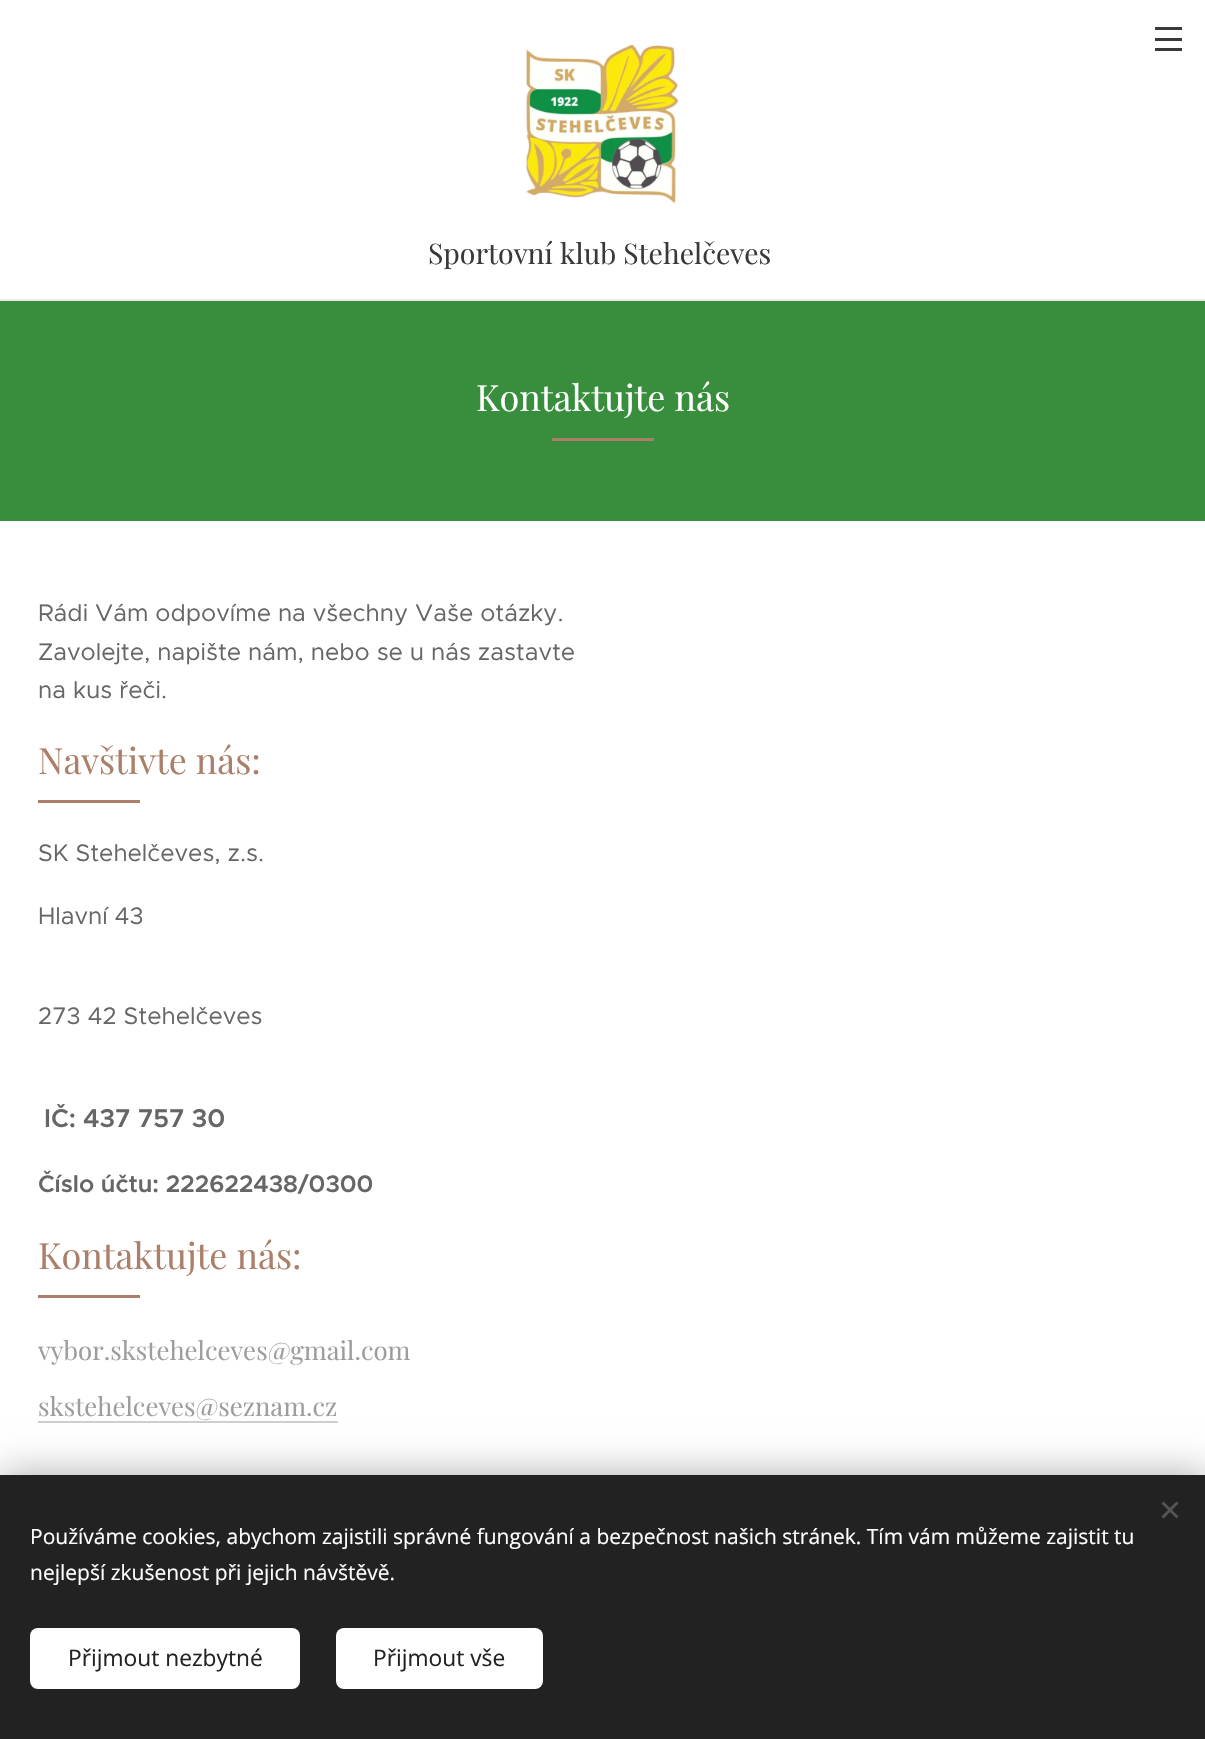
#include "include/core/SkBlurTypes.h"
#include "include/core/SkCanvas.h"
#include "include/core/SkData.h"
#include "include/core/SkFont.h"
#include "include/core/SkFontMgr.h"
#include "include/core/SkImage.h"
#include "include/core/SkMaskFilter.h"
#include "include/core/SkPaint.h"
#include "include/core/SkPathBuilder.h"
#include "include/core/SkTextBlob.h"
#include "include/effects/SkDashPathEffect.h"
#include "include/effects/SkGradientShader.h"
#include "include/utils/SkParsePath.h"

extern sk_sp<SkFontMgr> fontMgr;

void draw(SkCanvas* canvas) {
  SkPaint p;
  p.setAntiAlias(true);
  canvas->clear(SK_ColorWHITE);
  p.setColor(SkColorSetRGB(57, 57, 57));
  canvas->drawRect(SkRect::MakeLTRB(1155, 38, 1182, 41), p);
  canvas->drawRect(SkRect::MakeLTRB(1155, 27, 1182, 30), p);
  canvas->drawRect(SkRect::MakeLTRB(1155, 48, 1182, 51), p);
  canvas->drawImageRect(SkImages::DeferredFromEncodedData(SkData::MakeFromFileName("images/1.png")), SkRect::MakeLTRB(526, 44, 679, 203), SkSamplingOptions());
  p.setColor(SkColorSetRGB(232, 232, 232));
  canvas->drawRect(SkRect::MakeLTRB(0, 299, 1205, 301), p);
  p.setColor(SkColorSetRGB(56, 142, 60));
  canvas->drawRect(SkRect::MakeLTRB(0, 301, 1205, 521), p);
  p.setColor(SkColorSetRGB(171, 127, 105));
  canvas->drawRect(SkRect::MakeLTRB(552, 438, 654, 441), p);
  canvas->drawRect(SkRect::MakeLTRB(38, 800, 140, 803), p);
  canvas->drawRect(SkRect::MakeLTRB(38, 1295, 140, 1298), p);
  p.setColor(SkColorSetRGB(207, 207, 207));
  canvas->drawRect(SkRect::MakeLTRB(38, 1421, 338, 1423), p);
  p.setColor(SkColorSetARGB(84, 0, 0, 0));
  p.setMaskFilter(SkMaskFilter::MakeBlur(kNormal_SkBlurStyle, 19));
  canvas->drawRect(SkRect::MakeLTRB(0, 1475, 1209, 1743), p);
  p.setMaskFilter(nullptr);
  p.setColor(SkColorSetRGB(34, 34, 34));
  canvas->drawRect(SkRect::MakeLTRB(0, 1475, 1205, 1739), p);
  p.setColor(SkColorSetRGB(85, 85, 85));
  canvas->drawPath(SkPathBuilder().moveTo(1161.5f, 1516.5f).lineTo(1176.5f, 1501.5f).lineTo(1178.5f, 1503.5f).lineTo(1163.5f, 1518.5f).close().detach(), p);
  canvas->drawPath(SkPathBuilder().moveTo(1163.5f, 1501.5f).lineTo(1178.5f, 1516.5f).lineTo(1176.5f, 1518.5f).lineTo(1161.5f, 1503.5f).close().detach(), p);
  p.setColor(SK_ColorWHITE);
  canvas->drawRoundRect(SkRect::MakeLTRB(30, 1628, 300, 1689), 8, 8, p);
  canvas->drawRoundRect(SkRect::MakeLTRB(336, 1628, 543, 1689), 8, 8, p);
  SkFont font1(fontMgr->matchFamilyStyle("Playfair Display", SkFontStyle::Normal()), 28.4f);
  font1.setSubpixel(true);
  p.setColor(SkColorSetRGB(57, 57, 57));
  canvas->drawString("Sportovní klub Stehelčeves", 428, 264, font1, p);
  SkFont font2(fontMgr->matchFamilyStyle("Playfair Display", SkFontStyle::Normal()), 36);
  font2.setSubpixel(true);
  p.setColor(SK_ColorWHITE);
  canvas->drawString("Kontaktujte nás", 476, 411, font2, p);
  SkFont font3(fontMgr->matchFamilyStyle("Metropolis", SkFontStyle::Normal()), 24);
  font3.setSubpixel(true);
  p.setColor(SkColorSetRGB(102, 102, 102));
  canvas->drawString("Rádi Vám odpovíme na všechny Vaše otázky.", 38, 621, font3, p);
  canvas->drawString("Zavolejte, napište nám, nebo se u nás zastavte", 38, 660, font3, p);
  canvas->drawString("na kus řeči.", 38, 698, font3, p);
  p.setColor(SkColorSetRGB(171, 127, 105));
  canvas->drawString("Navštivte nás:", 38, 774, font2, p);
  p.setColor(SkColorSetRGB(102, 102, 102));
  canvas->drawString("SK Stehelčeves, z.s.", 38, 861, font3, p);
  canvas->drawString("Hlavní 43", 38, 924, font3, p);
  canvas->drawString("273 42 Stehelčeves", 38, 1024, font3, p);
  SkFont font4(fontMgr->matchFamilyStyle("Metropolis", SkFontStyle(600, SkFontStyle::kNormal_Width, SkFontStyle::kUpright_Slant)), 25.75f);
  font4.setSubpixel(true);
  canvas->drawString("IČ: 437 757 30", 44, 1127, font4, p);
  SkFont font5(fontMgr->matchFamilyStyle("Metropolis", SkFontStyle(600, SkFontStyle::kNormal_Width, SkFontStyle::kUpright_Slant)), 24);
  font5.setSubpixel(true);
  canvas->drawString("Číslo účtu: 222622438/0300", 38, 1192, font5, p);
  p.setColor(SkColorSetRGB(171, 127, 105));
  canvas->drawString("Kontaktujte nás:", 38, 1269, font2, p);
  SkFont font6(fontMgr->matchFamilyStyle("Playfair Display", SkFontStyle::Normal()), 25.75f);
  font6.setSubpixel(true);
  p.setColor(SkColorSetRGB(157, 157, 157));
  canvas->drawString("vybor.skstehelceves@gmail.com", 38, 1360, font6, p);
  canvas->drawString("skstehelceves@seznam.cz", 38, 1416, font6, p);
  SkFont font7(fontMgr->matchFamilyStyle("Open Sans", SkFontStyle::Normal()), 21);
  font7.setSubpixel(true);
  p.setColor(SK_ColorWHITE);
  canvas->drawString("Používáme cookies, abychom zajistili správné fungování a bezpečnost našich stránek. Tím vám můžeme zajistit tu", 30, 1544, font7, p);
  canvas->drawString("nejlepší zkušenost při jejich návštěvě.", 30, 1580, font7, p);
  SkFont font8(fontMgr->matchFamilyStyle("Open Sans", SkFontStyle::Normal()), 22.75f);
  font8.setSubpixel(true);
  p.setColor(SkColorSetRGB(34, 34, 34));
  canvas->drawString("Přijmout nezbytné", 68, 1666, font8, p);
  canvas->drawString("Přijmout vše", 373, 1666, font8, p);
}
